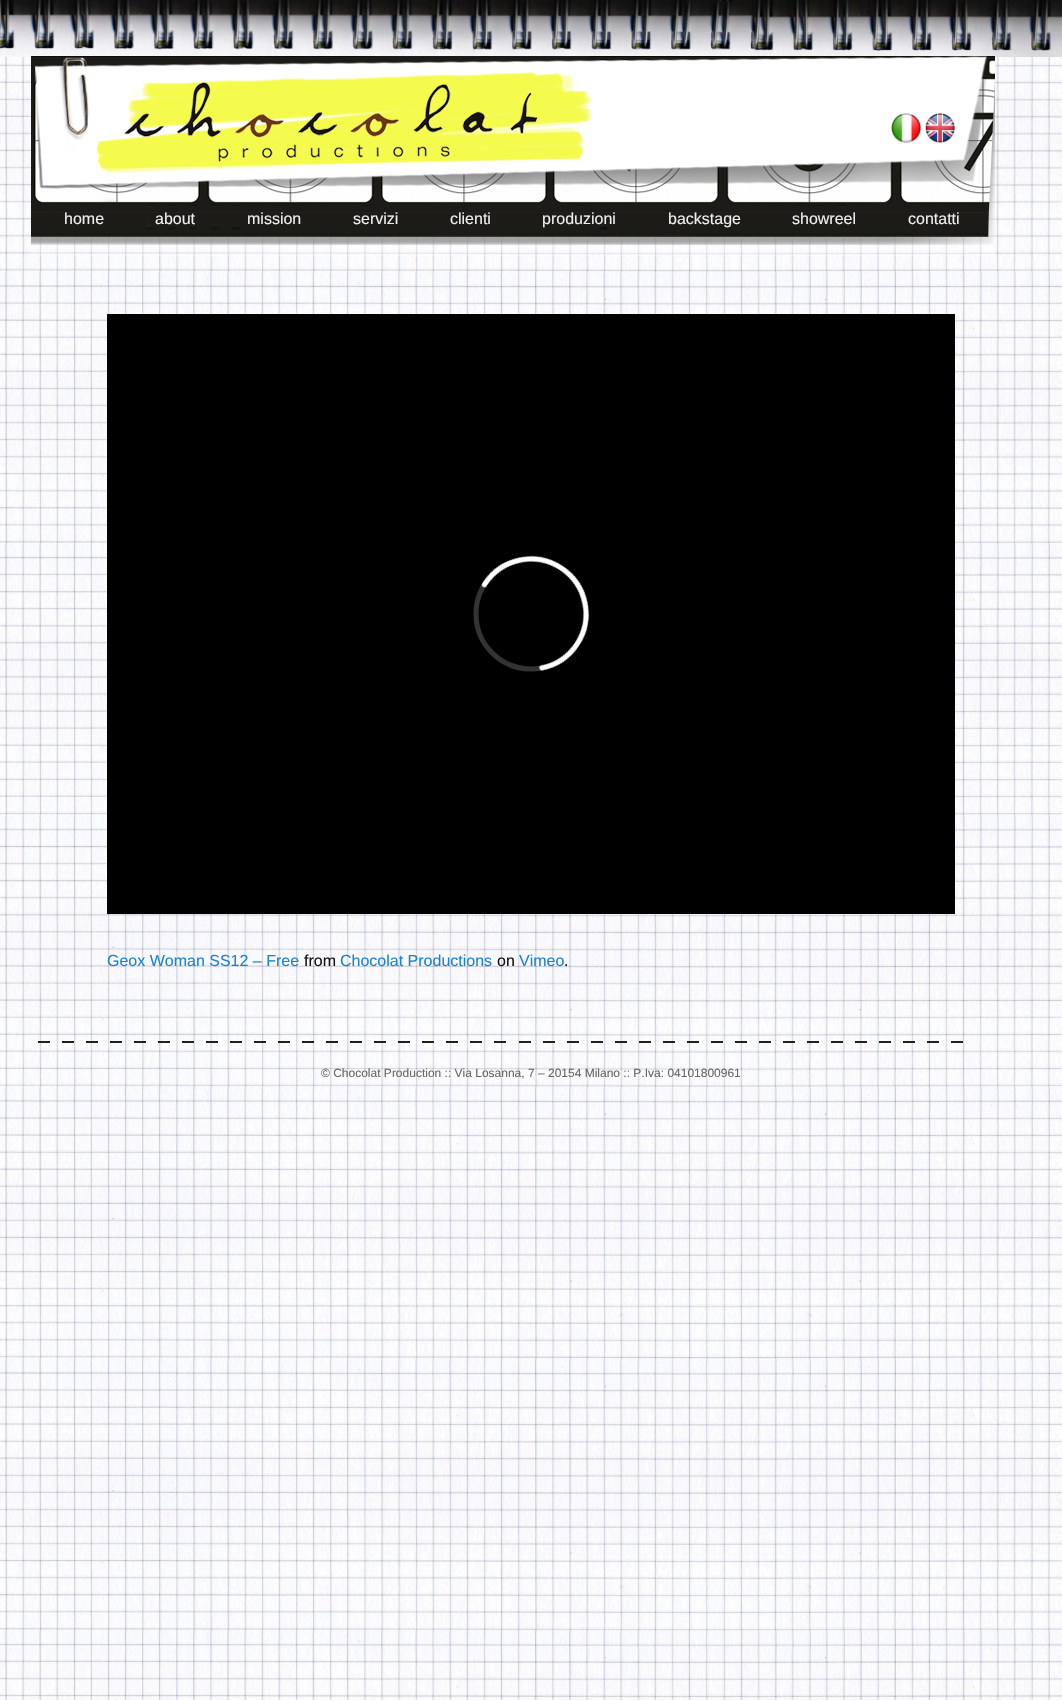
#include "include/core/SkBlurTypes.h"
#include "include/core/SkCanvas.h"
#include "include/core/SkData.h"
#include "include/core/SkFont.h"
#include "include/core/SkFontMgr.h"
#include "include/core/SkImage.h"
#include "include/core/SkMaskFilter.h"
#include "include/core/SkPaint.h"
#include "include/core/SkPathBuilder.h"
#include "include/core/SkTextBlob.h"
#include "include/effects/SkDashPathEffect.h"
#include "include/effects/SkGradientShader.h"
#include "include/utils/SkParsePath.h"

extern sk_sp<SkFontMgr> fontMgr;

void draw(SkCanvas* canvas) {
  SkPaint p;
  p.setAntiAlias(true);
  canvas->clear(SK_ColorWHITE);
  canvas->drawImageRect(SkImages::DeferredFromEncodedData(SkData::MakeFromFileName("images/1.png")), SkRect::MakeLTRB(0, 57, 1062, 1700), SkSamplingOptions());
  canvas->drawImageRect(SkImages::DeferredFromEncodedData(SkData::MakeFromFileName("images/2.png")), SkRect::MakeLTRB(0, 0, 1062, 57), SkSamplingOptions());
  canvas->drawImageRect(SkImages::DeferredFromEncodedData(SkData::MakeFromFileName("images/3.png")), SkRect::MakeLTRB(31, 56, 995, 256), SkSamplingOptions());
  canvas->drawImageRect(SkImages::DeferredFromEncodedData(SkData::MakeFromFileName("images/4.png")), SkRect::MakeLTRB(891, 113, 921, 143), SkSamplingOptions());
  canvas->drawImageRect(SkImages::DeferredFromEncodedData(SkData::MakeFromFileName("images/5.png")), SkRect::MakeLTRB(925, 113, 955, 143), SkSamplingOptions());
  canvas->drawImageRect(SkImages::DeferredFromEncodedData(SkData::MakeFromFileName("images/6.png")), SkRect::MakeLTRB(107, 314, 955, 914), SkSamplingOptions());
  canvas->drawImageRect(SkImages::DeferredFromEncodedData(SkData::MakeFromFileName("images/7.png")), SkRect::MakeLTRB(37, 1041, 963, 1043), SkSamplingOptions());
  SkFont font1(fontMgr->matchFamilyStyle("Liberation Sans", SkFontStyle::Normal()), 16);
  font1.setSubpixel(true);
  p.setColor(SkColorSetRGB(238, 238, 238));
  canvas->drawString("home", 64, 224, font1, p);
  canvas->drawString("about", 155, 224, font1, p);
  canvas->drawString("mission", 247, 224, font1, p);
  canvas->drawString("servizi", 353, 224, font1, p);
  canvas->drawString("clienti", 450, 224, font1, p);
  canvas->drawString("produzioni", 542, 224, font1, p);
  canvas->drawString("backstage", 668, 224, font1, p);
  canvas->drawString("showreel", 792, 224, font1, p);
  canvas->drawString("contatti", 908, 224, font1, p);
  p.setColor(SkColorSetRGB(25, 130, 209));
  canvas->drawString("Geox Woman SS12 – Free", 107, 966, font1, p);
  p.setColor(SkColorSetRGB(17, 17, 17));
  canvas->drawString("from", 304, 966, font1, p);
  p.setColor(SkColorSetRGB(25, 130, 209));
  canvas->drawString("Chocolat Productions", 340, 966, font1, p);
  p.setColor(SkColorSetRGB(17, 17, 17));
  canvas->drawString("on", 497, 966, font1, p);
  p.setColor(SkColorSetRGB(25, 130, 209));
  canvas->drawString("Vimeo", 519, 966, font1, p);
  p.setColor(SkColorSetRGB(17, 17, 17));
  canvas->drawString(".", 564, 966, font1, p);
  SkFont font2(fontMgr->matchFamilyStyle("Liberation Sans", SkFontStyle::Normal()), 12);
  font2.setSubpixel(true);
  p.setColor(SkColorSetRGB(102, 102, 102));
  canvas->drawString("© Chocolat Production :: Via Losanna, 7 – 20154 Milano :: P.Iva: 04101800961", 321, 1077, font2, p);
}
